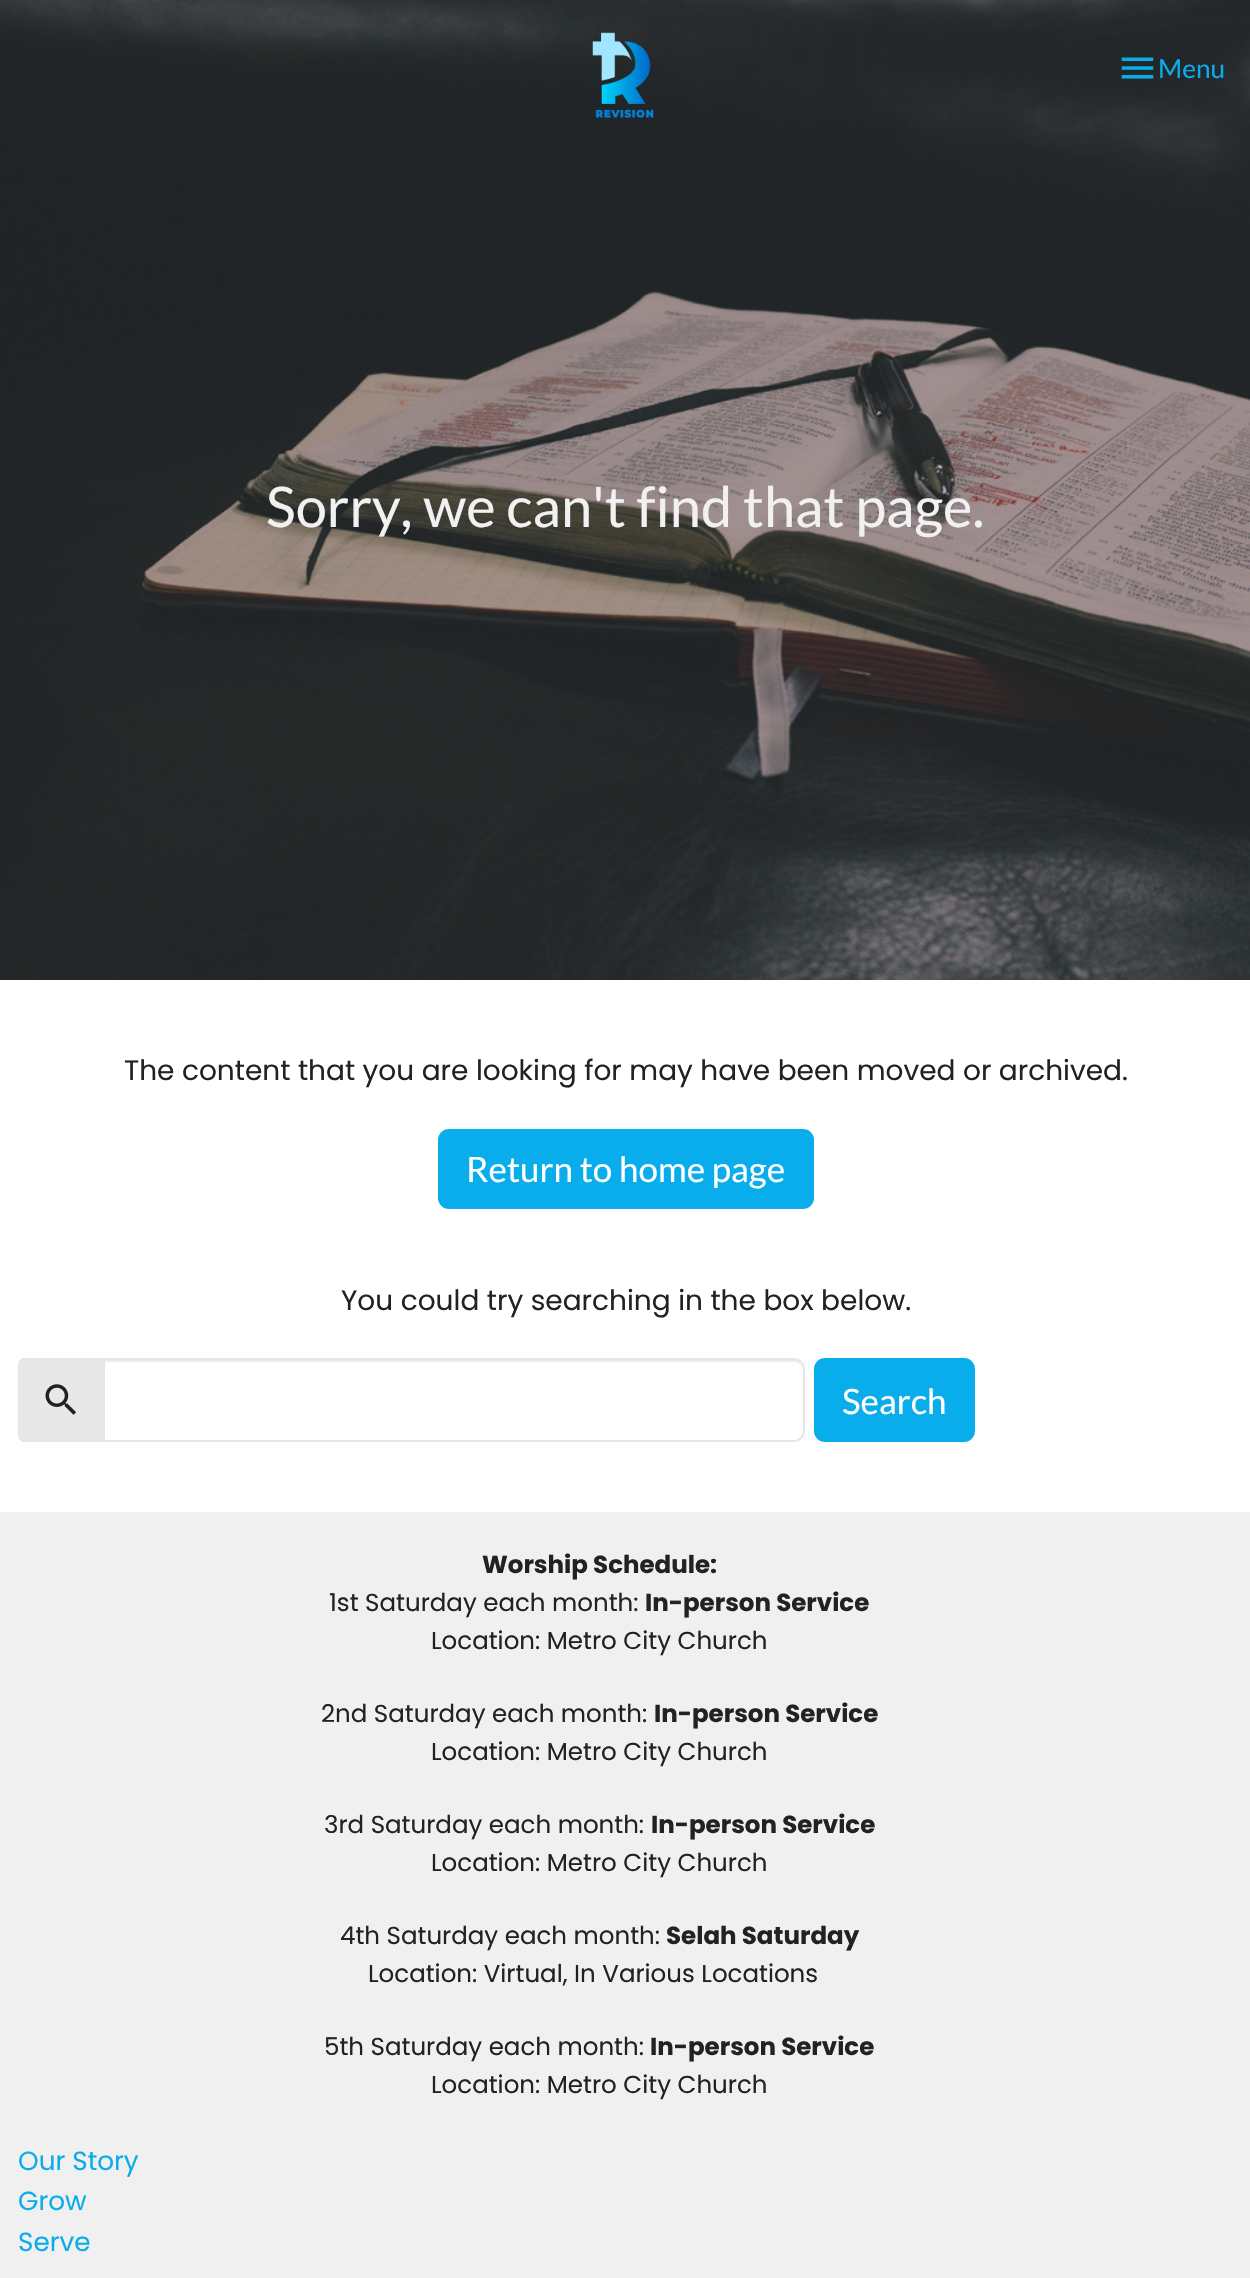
#include "include/core/SkBlurTypes.h"
#include "include/core/SkCanvas.h"
#include "include/core/SkData.h"
#include "include/core/SkFont.h"
#include "include/core/SkFontMgr.h"
#include "include/core/SkImage.h"
#include "include/core/SkMaskFilter.h"
#include "include/core/SkPaint.h"
#include "include/core/SkPathBuilder.h"
#include "include/core/SkTextBlob.h"
#include "include/effects/SkDashPathEffect.h"
#include "include/effects/SkGradientShader.h"
#include "include/utils/SkParsePath.h"

extern sk_sp<SkFontMgr> fontMgr;

void draw(SkCanvas* canvas) {
  SkPaint p;
  p.setAntiAlias(true);
  canvas->clear(SK_ColorWHITE);
  canvas->drawImageRect(SkImages::DeferredFromEncodedData(SkData::MakeFromFileName("images/3.png")), SkRect::MakeLTRB(0, 0, 1250, 980), SkSamplingOptions());
  canvas->drawImageRect(SkImages::DeferredFromEncodedData(SkData::MakeFromFileName("images/1.png")), SkRect::MakeLTRB(592, 32, 654, 118), SkSamplingOptions());
  canvas->drawImageRect(SkImages::DeferredFromEncodedData(SkData::MakeFromFileName("images/2.png")), SkRect::MakeLTRB(1121, 57, 1154, 79), SkSamplingOptions());
  p.setColor(SkColorSetRGB(9, 173, 235));
  canvas->drawRoundRect(SkRect::MakeLTRB(438, 1129, 814, 1209), 11, 11, p);
  p.setColor(SkColorSetRGB(232, 232, 232));
  canvas->drawPath(SkPathBuilder().moveTo(25, 1358).lineTo(103, 1358).lineTo(103, 1442).lineTo(25, 1442).cubicTo(21, 1442, 18, 1439, 18, 1435).lineTo(18, 1365).cubicTo(18, 1361, 21, 1358, 25, 1358).close().detach(), p);
  p.setColor(SkColorSetRGB(230, 230, 230));
  canvas->drawPath(SkPathBuilder(SkPathFillType::kEvenOdd).moveTo(24, 1358).lineTo(103, 1358).lineTo(103, 1442).lineTo(24, 1442).cubicTo(21, 1442, 18, 1439, 18, 1435).lineTo(18, 1365).cubicTo(18, 1361, 21, 1358, 24, 1358).close().moveTo(24, 1360).lineTo(103, 1360).lineTo(103, 1440).lineTo(24, 1440).cubicTo(22, 1440, 19, 1438, 19, 1435).lineTo(19, 1365).cubicTo(19, 1362, 22, 1360, 24, 1360).close().detach(), p);
  canvas->drawImageRect(SkImages::DeferredFromEncodedData(SkData::MakeFromFileName("images/4.png")), SkRect::MakeLTRB(45, 1384, 76, 1415), SkSamplingOptions());
  p.setColor(SkColorSetRGB(236, 236, 236));
  canvas->drawPath(SkPathBuilder().moveTo(105, 1362).lineTo(794, 1362).cubicTo(799, 1362, 803, 1365, 803, 1370).cubicTo(803, 1365, 800, 1360, 794, 1360).lineTo(105, 1360).close().detach(), p);
  p.setStyle(SkPaint::kStroke_Style);
  p.setStrokeWidth(2);
  p.setColor(SkColorSetRGB(230, 230, 230));
  canvas->drawPath(SkPathBuilder().moveTo(104, 1359).lineTo(794, 1359).cubicTo(799.5f, 1359, 804, 1363.5f, 804, 1369).lineTo(804, 1431).cubicTo(804, 1436.5f, 799.5f, 1441, 794, 1441).lineTo(104, 1441).close().detach(), p);
  p.setStyle(SkPaint::kFill_Style);
  p.setColor(SkColorSetRGB(9, 173, 235));
  canvas->drawRoundRect(SkRect::MakeLTRB(814, 1358, 975, 1442), 11, 11, p);
  p.setColor(SkColorSetRGB(240, 240, 240));
  canvas->drawRect(SkRect::MakeLTRB(0, 1512, 1250, 2278), p);
  SkFont font1(fontMgr->matchFamilyStyle("Lato", SkFontStyle::Normal()), 26.25f);
  font1.setSubpixel(true);
  p.setColor(SkColorSetRGB(9, 173, 235));
  canvas->drawString("Menu", 1158, 78, font1, p);
  SkFont font2(fontMgr->matchFamilyStyle("Lato", SkFontStyle::Normal()), 56);
  font2.setSubpixel(true);
  p.setColor(SkColorSetRGB(241, 241, 241));
  canvas->drawString("Sorry, we can't find that page.", 266, 527, font2, p);
  SkFont font3(fontMgr->matchFamilyStyle("Poppins", SkFontStyle::Normal()), 28);
  font3.setSubpixel(true);
  p.setColor(SkColorSetRGB(34, 34, 34));
  canvas->drawString("The content that you are looking for may have been moved or archived.", 124, 1080, font3, p);
  SkFont font4(fontMgr->matchFamilyStyle("Lato", SkFontStyle::Normal()), 35);
  font4.setSubpixel(true);
  p.setColor(SK_ColorWHITE);
  canvas->drawString("Return to home page", 466, 1182, font4, p);
  p.setColor(SkColorSetRGB(34, 34, 34));
  canvas->drawString("You could try searching in the box below.", 341, 1310, font3, p);
  p.setColor(SK_ColorWHITE);
  canvas->drawString("Search", 842, 1414, font4, p);
  SkFont font5(fontMgr->matchFamilyStyle("Poppins", SkFontStyle::Bold()), 24.5f);
  font5.setSubpixel(true);
  p.setColor(SkColorSetRGB(34, 34, 34));
  canvas->drawString("Worship Schedule:", 482, 1573, font5, p);
  SkFont font6(fontMgr->matchFamilyStyle("Poppins", SkFontStyle::Normal()), 24.5f);
  font6.setSubpixel(true);
  canvas->drawString("1st Saturday each month:", 329, 1611, font6, p);
  canvas->drawString("In-person Service", 645, 1611, font5, p);
  canvas->drawString("Location: Metro City Church", 431, 1649, font6, p);
  canvas->drawString("2nd Saturday each month:", 321, 1722, font6, p);
  canvas->drawString("In-person Service", 654, 1722, font5, p);
  canvas->drawString("Location: Metro City Church", 431, 1760, font6, p);
  canvas->drawString("3rd Saturday each month:", 324, 1833, font6, p);
  canvas->drawString("In-person Service", 651, 1833, font5, p);
  canvas->drawString("Location: Metro City Church", 431, 1871, font6, p);
  canvas->drawString("4th Saturday each month:", 340, 1944, font6, p);
  canvas->drawString("Selah Saturday", 666, 1944, font5, p);
  canvas->drawString("Location: Virtual, In Various Locations", 368, 1982, font6, p);
  canvas->drawString("5th Saturday each month:", 324, 2055, font6, p);
  canvas->drawString("In-person Service", 650, 2055, font5, p);
  canvas->drawString("Location: Metro City Church", 431, 2093, font6, p);
  SkFont font7(fontMgr->matchFamilyStyle("Poppins", SkFontStyle::Normal()), 26.25f);
  font7.setSubpixel(true);
  p.setColor(SkColorSetRGB(9, 173, 235));
  canvas->drawString("Our Story", 18, 2170, font7, p);
  canvas->drawString("Grow", 18, 2210, font7, p);
  canvas->drawString("Serve", 18, 2251, font7, p);
}
